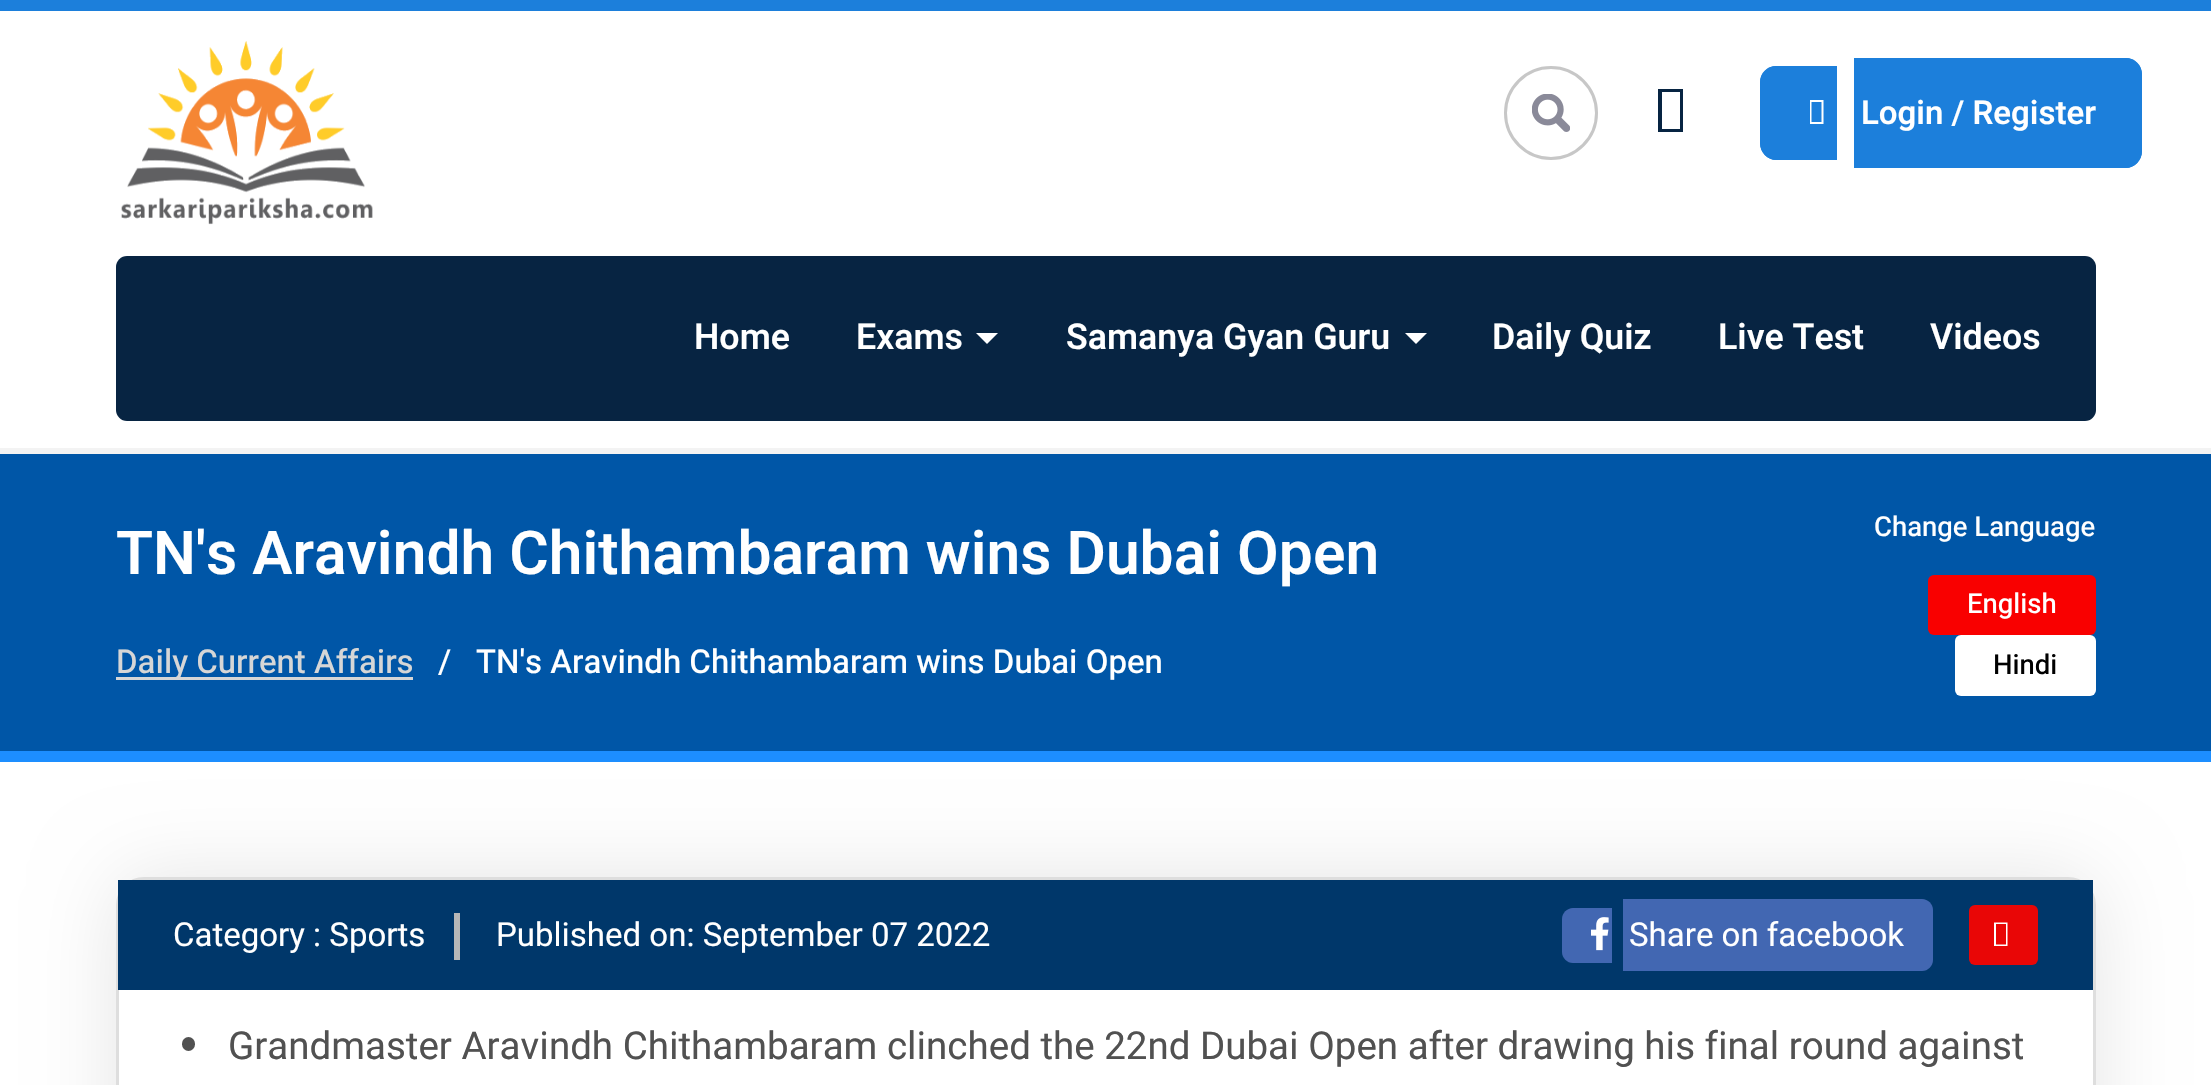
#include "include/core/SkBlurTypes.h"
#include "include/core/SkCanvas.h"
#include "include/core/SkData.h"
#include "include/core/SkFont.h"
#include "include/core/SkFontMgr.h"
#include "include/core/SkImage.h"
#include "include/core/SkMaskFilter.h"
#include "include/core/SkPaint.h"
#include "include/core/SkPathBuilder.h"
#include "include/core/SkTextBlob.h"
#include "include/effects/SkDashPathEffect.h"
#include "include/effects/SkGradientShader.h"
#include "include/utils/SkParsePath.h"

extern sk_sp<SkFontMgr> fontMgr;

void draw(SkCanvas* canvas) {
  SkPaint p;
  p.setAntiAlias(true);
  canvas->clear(SK_ColorWHITE);
  p.setColor(SkColorSetRGB(28, 127, 219));
  canvas->drawRect(SkRect::MakeLTRB(0, 0, 2211, 11), p);
  p.setColor(SkColorSetRGB(243, 243, 243));
  canvas->drawRect(SkRect::MakeLTRB(0, 448, 2211, 454), p);
  canvas->drawImageRect(SkImages::DeferredFromEncodedData(SkData::MakeFromFileName("images/1.png")), SkRect::MakeLTRB(121, 41, 373, 225), SkSamplingOptions());
  canvas->drawImageRect(SkImages::DeferredFromEncodedData(SkData::MakeFromFileName("images/2.png")), SkRect::MakeLTRB(1532, 94, 1570, 132), SkSamplingOptions());
  p.setStyle(SkPaint::kStroke_Style);
  p.setStrokeWidth(3);
  p.setColor(SkColorSetRGB(199, 199, 199));
  canvas->drawCircle(1551, 113, 45.5f, p);
  p.setStyle(SkPaint::kFill_Style);
  p.setColor(SkColorSetRGB(7, 36, 66));
  canvas->drawPath(SkPathBuilder().moveTo(1658, 132).lineTo(1658, 89).lineTo(1683, 89).lineTo(1683, 132).close().moveTo(1662, 129).lineTo(1680, 129).lineTo(1680, 92).lineTo(1662, 92).close().detach(), p);
  p.setColor(SkColorSetRGB(28, 127, 219));
  canvas->drawPath(SkPathBuilder().moveTo(1777, 66).lineTo(1837, 66).lineTo(1837, 160).lineTo(1777, 160).cubicTo(1767.5f, 160, 1760, 152.5f, 1760, 143).lineTo(1760, 83).cubicTo(1760, 73.5f, 1767.5f, 66, 1777, 66).close().detach(), p);
  canvas->drawPath(SkPathBuilder(SkPathFillType::kEvenOdd).moveTo(1776, 66).lineTo(1837, 66).lineTo(1837, 160).lineTo(1776, 160).cubicTo(1767, 160, 1760, 152, 1760, 143).lineTo(1760, 82).cubicTo(1760, 73, 1767, 66, 1776, 66).close().moveTo(1776, 69).lineTo(1837, 69).lineTo(1837, 157).lineTo(1776, 157).cubicTo(1769, 157, 1763, 151, 1763, 143).lineTo(1763, 82).cubicTo(1763, 75, 1769, 69, 1776, 69).close().detach(), p);
  canvas->drawPath(SkPathBuilder().moveTo(1854, 58).lineTo(2125, 58).cubicTo(2134.5f, 58, 2142, 65.5f, 2142, 75).lineTo(2142, 151).cubicTo(2142, 160.5f, 2134.5f, 168, 2125, 168).lineTo(1854, 168).close().detach(), p);
  canvas->drawPath(SkPathBuilder(SkPathFillType::kEvenOdd).moveTo(1854, 58).lineTo(2126, 58).cubicTo(2135, 58, 2142, 65, 2142, 74).lineTo(2142, 151).cubicTo(2142, 160, 2135, 168, 2126, 168).lineTo(1854, 168).close().moveTo(1854, 60).lineTo(2126, 60).cubicTo(2133, 60, 2140, 67, 2140, 74).lineTo(2140, 151).cubicTo(2140, 159, 2133, 165, 2126, 165).lineTo(1854, 165).close().detach(), p);
  p.setColor(SK_ColorWHITE);
  canvas->drawPath(SkPathBuilder().moveTo(1810, 124).lineTo(1810, 100).lineTo(1823.5f, 100).lineTo(1823.5f, 124).close().moveTo(1811.5f, 122).lineTo(1821.5f, 122).lineTo(1821.5f, 102).lineTo(1811.5f, 102).close().detach(), p);
  p.setColor(SkColorSetRGB(7, 36, 66));
  canvas->drawRoundRect(SkRect::MakeLTRB(116, 256, 2096, 421), 11, 11, p);
  p.setColor(SK_ColorWHITE);
  canvas->drawPath(SkPathBuilder().moveTo(976, 333).lineTo(998, 333).lineTo(987, 344).close().detach(), p);
  canvas->drawPath(SkPathBuilder().moveTo(1405, 333).lineTo(1427, 333).lineTo(1416, 344).close().detach(), p);
  p.setColor(SkColorSetRGB(0, 86, 167));
  canvas->drawRect(SkRect::MakeLTRB(0, 454, 2211, 751), p);
  p.setColor(SkColorSetARGB(26, 0, 0, 0));
  p.setMaskFilter(SkMaskFilter::MakeBlur(kNormal_SkBlurStyle, 41));
  canvas->drawRoundRect(SkRect::MakeLTRB(116, 877, 2096, 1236), 28, 28, p);
  p.setMaskFilter(nullptr);
  p.setColor(SkColorSetRGB(29, 142, 255));
  canvas->drawRect(SkRect::MakeLTRB(0, 751, 2211, 762), p);
  p.setColor(SkColorSetRGB(214, 214, 214));
  canvas->drawRect(SkRect::MakeLTRB(116, 677, 413, 680), p);
  p.setColor(SkColorSetRGB(249, 0, 0));
  canvas->drawRoundRect(SkRect::MakeLTRB(1928, 575, 2096, 635), 6, 6, p);
  p.setColor(SK_ColorWHITE);
  canvas->drawRoundRect(SkRect::MakeLTRB(1955, 635, 2096, 696), 6, 6, p);
  canvas->drawRoundRect(SkRect::MakeLTRB(117.5f, 878.5f, 2094.5f, 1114.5f), 26.5f, 26.5f, p);
  p.setStyle(SkPaint::kStroke_Style);
  p.setColor(SkColorSetRGB(222, 222, 222));
  canvas->drawRoundRect(SkRect::MakeLTRB(117.5f, 878.5f, 2094.5f, 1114.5f), 26.5f, 26.5f, p);
  p.setStyle(SkPaint::kFill_Style);
  p.setColor(SkColorSetRGB(0, 55, 106));
  canvas->drawRect(SkRect::MakeLTRB(118, 880, 2093, 990), p);
  p.setColor(SkColorSetRGB(183, 183, 183));
  canvas->drawRect(SkRect::MakeLTRB(454, 913, 460, 960), p);
  p.setColor(SkColorSetRGB(66, 103, 178));
  canvas->drawPath(SkPathBuilder().moveTo(1573, 908).lineTo(1612, 908).lineTo(1612, 963).lineTo(1573, 963).cubicTo(1567, 963, 1562, 958, 1562, 952).lineTo(1562, 919).cubicTo(1562, 913, 1567, 908, 1573, 908).close().detach(), p);
  canvas->drawPath(SkPathBuilder().moveTo(1623, 899).lineTo(1922, 899).cubicTo(1928, 899, 1933, 904, 1933, 910).lineTo(1933, 960).cubicTo(1933, 966, 1928, 971, 1922, 971).lineTo(1623, 971).close().detach(), p);
  canvas->drawImageRect(SkImages::DeferredFromEncodedData(SkData::MakeFromFileName("images/3.png")), SkRect::MakeLTRB(1591, 917, 1609, 951), SkSamplingOptions());
  p.setColor(SkColorSetRGB(233, 6, 6));
  canvas->drawRoundRect(SkRect::MakeLTRB(1969, 905, 2038, 965), 6, 6, p);
  p.setColor(SK_ColorWHITE);
  canvas->drawPath(SkPathBuilder().moveTo(1994, 946).lineTo(1994, 922.5f).lineTo(2007.5f, 922.5f).lineTo(2007.5f, 946).close().moveTo(1996, 944.5f).lineTo(2006, 944.5f).lineTo(2006, 924).lineTo(1996, 924).close().detach(), p);
  p.setColor(SkColorSetRGB(81, 81, 81));
  canvas->drawRoundRect(SkRect::MakeLTRB(182, 1037, 195, 1051), 6.5f, 6.5f, p);
  SkFont font1(fontMgr->matchFamilyStyle("Heebo", SkFontStyle(600, SkFontStyle::kNormal_Width, SkFontStyle::kUpright_Slant)), 33);
  font1.setSubpixel(true);
  p.setColor(SK_ColorWHITE);
  canvas->drawString("Login / Register", 1861, 124, font1, p);
  SkFont font2(fontMgr->matchFamilyStyle("Heebo", SkFontStyle(600, SkFontStyle::kNormal_Width, SkFontStyle::kUpright_Slant)), 35.75f);
  font2.setSubpixel(true);
  canvas->drawString("Home", 694, 349, font2, p);
  canvas->drawString("Exams", 856, 349, font2, p);
  canvas->drawString("Samanya Gyan Guru", 1066, 349, font2, p);
  canvas->drawString("Daily Quiz", 1492, 349, font2, p);
  canvas->drawString("Live Test", 1718, 349, font2, p);
  canvas->drawString("Videos", 1930, 349, font2, p);
  SkFont font3(fontMgr->matchFamilyStyle("Heebo", SkFontStyle(600, SkFontStyle::kNormal_Width, SkFontStyle::kUpright_Slant)), 60.5f);
  font3.setSubpixel(true);
  canvas->drawString("TN's Aravindh Chithambaram wins Dubai Open", 116, 574, font3, p);
  SkFont font4(fontMgr->matchFamilyStyle("Heebo", SkFontStyle(500, SkFontStyle::kNormal_Width, SkFontStyle::kUpright_Slant)), 33);
  font4.setSubpixel(true);
  p.setColor(SkColorSetRGB(214, 214, 214));
  canvas->drawString("Daily Current Affairs", 116, 673, font4, p);
  p.setColor(SK_ColorWHITE);
  canvas->drawString("/", 438, 673, font4, p);
  canvas->drawString("TN's Aravindh Chithambaram wins Dubai Open", 476, 673, font4, p);
  SkFont font5(fontMgr->matchFamilyStyle("Heebo", SkFontStyle(500, SkFontStyle::kNormal_Width, SkFontStyle::kUpright_Slant)), 27.5f);
  font5.setSubpixel(true);
  canvas->drawString("Change Language", 1874, 536, font5, p);
  canvas->drawString("English", 1967, 613, font5, p);
  p.setColor(SK_ColorBLACK);
  canvas->drawString("Hindi", 1993, 674, font5, p);
  SkFont font6(fontMgr->matchFamilyStyle("Heebo", SkFontStyle::Normal()), 33);
  font6.setSubpixel(true);
  p.setColor(SK_ColorWHITE);
  canvas->drawString("Category : Sports", 173, 946, font6, p);
  canvas->drawString("Published on: September 07 2022", 496, 946, font6, p);
  canvas->drawString("Share on facebook", 1629, 946, font6, p);
  SkFont font7(fontMgr->matchFamilyStyle("Heebo", SkFontStyle::Normal()), 38.5f);
  font7.setSubpixel(true);
  p.setColor(SkColorSetRGB(81, 81, 81));
  canvas->drawString("Grandmaster Aravindh Chithambaram clinched the 22nd Dubai Open after drawing his final round against", 228, 1059, font7, p);
}
